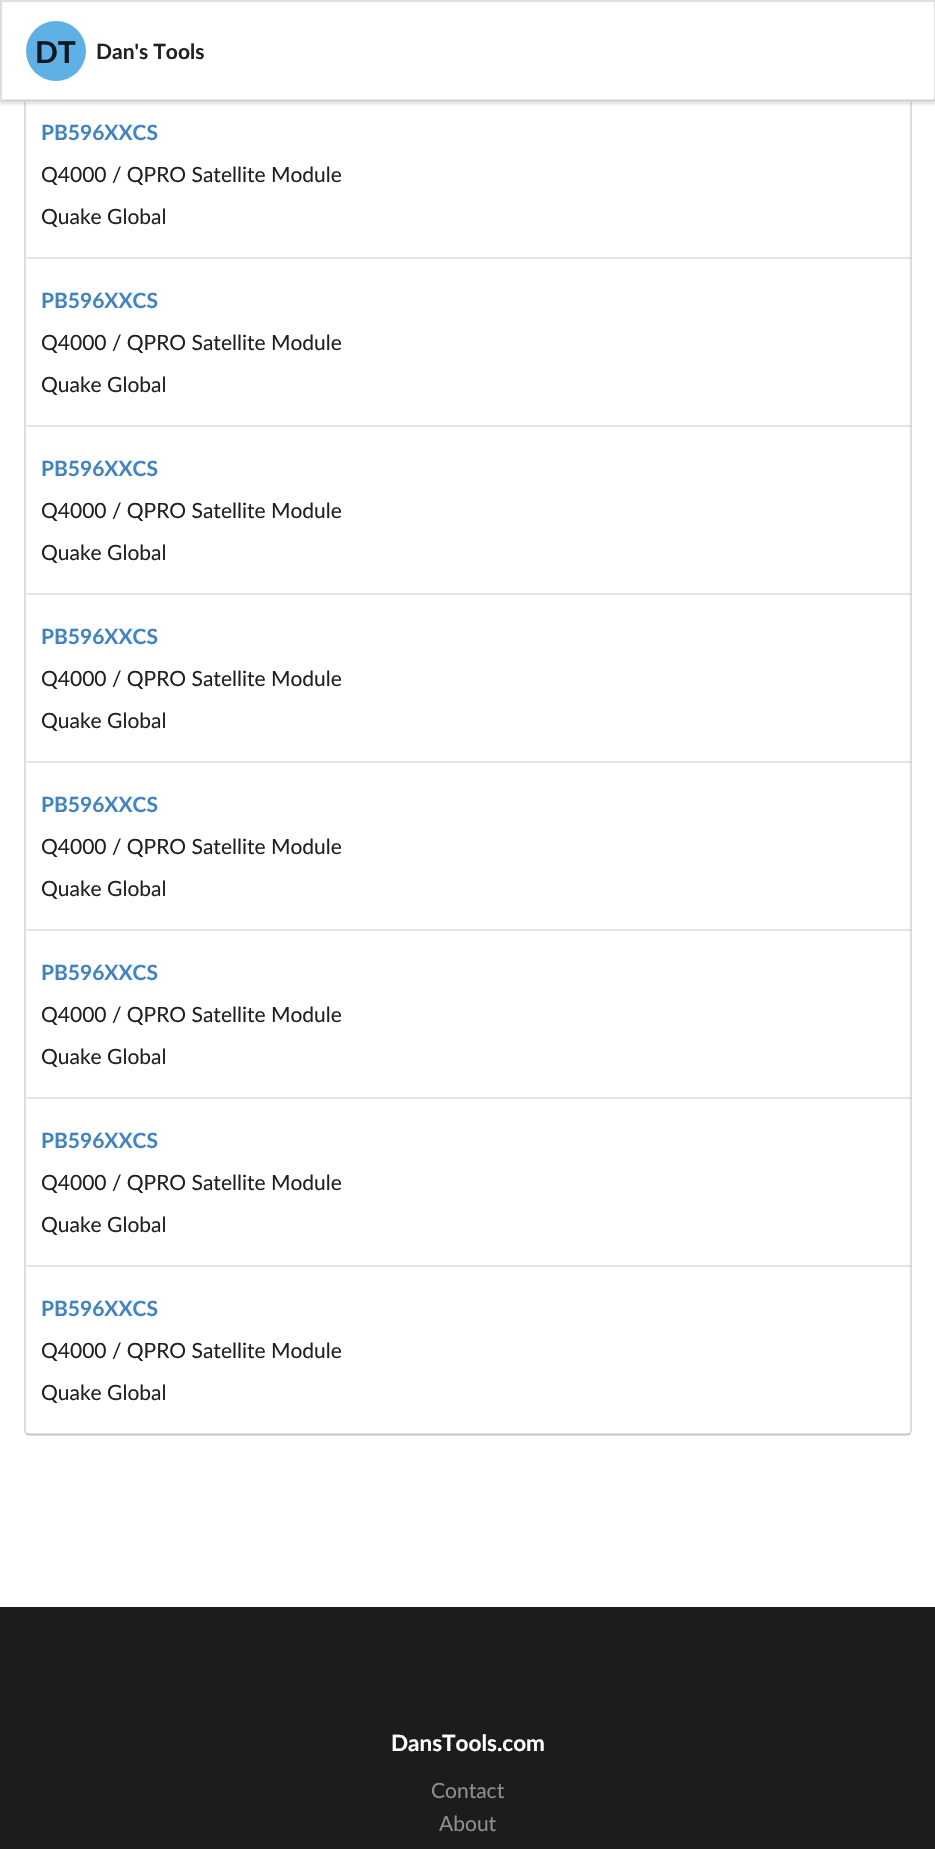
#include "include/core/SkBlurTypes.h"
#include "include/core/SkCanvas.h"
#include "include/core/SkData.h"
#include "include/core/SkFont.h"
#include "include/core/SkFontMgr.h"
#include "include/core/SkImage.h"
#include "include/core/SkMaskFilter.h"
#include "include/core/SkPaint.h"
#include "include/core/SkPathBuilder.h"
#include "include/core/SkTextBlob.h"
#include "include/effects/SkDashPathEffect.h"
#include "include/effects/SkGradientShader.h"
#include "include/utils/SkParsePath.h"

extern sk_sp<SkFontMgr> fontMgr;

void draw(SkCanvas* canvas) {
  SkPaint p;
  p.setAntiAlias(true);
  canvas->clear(SK_ColorWHITE);
  p.setStyle(SkPaint::kStroke_Style);
  p.setStrokeWidth(2);
  p.setColor(SkColorSetRGB(222, 222, 222));
  canvas->drawRoundRect(SkRect::MakeLTRB(25, -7, 911, 1435), 5, 5, p);
  p.setStyle(SkPaint::kFill_Style);
  p.setColor(SkColorSetARGB(38, 34, 36, 38));
  p.setMaskFilter(SkMaskFilter::MakeBlur(kNormal_SkBlurStyle, 1.5f));
  canvas->drawRect(SkRect::MakeLTRB(0, 2, 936, 104), p);
  p.setMaskFilter(nullptr);
  p.setColor(SK_ColorWHITE);
  canvas->drawRect(SkRect::MakeLTRB(1, 1, 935, 101), p);
  p.setStyle(SkPaint::kStroke_Style);
  p.setColor(SkColorSetRGB(222, 222, 222));
  canvas->drawRect(SkRect::MakeLTRB(1, 1, 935, 101), p);
  p.setStyle(SkPaint::kFill_Style);
  p.setColor(SkColorSetRGB(95, 176, 228));
  canvas->drawCircle(56, 51, 30, p);
  p.setColor(SkColorSetARGB(26, 34, 36, 38));
  canvas->drawRect(SkRect::MakeLTRB(2, 99, 935, 101), p);
  p.setColor(SkColorSetARGB(26, 0, 0, 0));
  canvas->drawRect(SkRect::MakeLTRB(26, 257, 911, 259), p);
  canvas->drawRect(SkRect::MakeLTRB(26, 425, 911, 427), p);
  canvas->drawRect(SkRect::MakeLTRB(26, 593, 911, 595), p);
  canvas->drawRect(SkRect::MakeLTRB(26, 761, 911, 763), p);
  canvas->drawRect(SkRect::MakeLTRB(26, 929, 911, 931), p);
  canvas->drawRect(SkRect::MakeLTRB(26, 1097, 911, 1099), p);
  canvas->drawRect(SkRect::MakeLTRB(26, 1265, 911, 1267), p);
  canvas->drawRect(SkRect::MakeLTRB(26, 1433, 911, 1435), p);
  p.setColor(SkColorSetRGB(27, 28, 29));
  canvas->drawRect(SkRect::MakeLTRB(0, 1607, 935, 1849), p);
  SkFont font1(fontMgr->matchFamilyStyle("Lato", SkFontStyle::Bold()), 30);
  font1.setSubpixel(true);
  p.setColor(SkColorSetRGB(12, 23, 30));
  canvas->drawString("DT", 35, 63, font1, p);
  SkFont font2(fontMgr->matchFamilyStyle("Lato", SkFontStyle::Bold()), 21);
  font2.setSubpixel(true);
  p.setColor(SkColorSetRGB(33, 33, 33));
  canvas->drawString("Dan's Tools", 96, 59, font2, p);
  p.setColor(SkColorSetRGB(65, 131, 196));
  canvas->drawString("PB596XXCS", 41, 140, font2, p);
  SkFont font3(fontMgr->matchFamilyStyle("Lato", SkFontStyle::Normal()), 21);
  font3.setSubpixel(true);
  p.setColor(SkColorSetRGB(33, 33, 33));
  canvas->drawString("Q4000 / QPRO Satellite Module", 41, 182, font3, p);
  canvas->drawString("Quake Global", 41, 224, font3, p);
  p.setColor(SkColorSetRGB(65, 131, 196));
  canvas->drawString("PB596XXCS", 41, 308, font2, p);
  p.setColor(SkColorSetRGB(33, 33, 33));
  canvas->drawString("Q4000 / QPRO Satellite Module", 41, 350, font3, p);
  canvas->drawString("Quake Global", 41, 392, font3, p);
  p.setColor(SkColorSetRGB(65, 131, 196));
  canvas->drawString("PB596XXCS", 41, 476, font2, p);
  p.setColor(SkColorSetRGB(33, 33, 33));
  canvas->drawString("Q4000 / QPRO Satellite Module", 41, 518, font3, p);
  canvas->drawString("Quake Global", 41, 560, font3, p);
  p.setColor(SkColorSetRGB(65, 131, 196));
  canvas->drawString("PB596XXCS", 41, 644, font2, p);
  p.setColor(SkColorSetRGB(33, 33, 33));
  canvas->drawString("Q4000 / QPRO Satellite Module", 41, 686, font3, p);
  canvas->drawString("Quake Global", 41, 728, font3, p);
  p.setColor(SkColorSetRGB(65, 131, 196));
  canvas->drawString("PB596XXCS", 41, 812, font2, p);
  p.setColor(SkColorSetRGB(33, 33, 33));
  canvas->drawString("Q4000 / QPRO Satellite Module", 41, 854, font3, p);
  canvas->drawString("Quake Global", 41, 896, font3, p);
  p.setColor(SkColorSetRGB(65, 131, 196));
  canvas->drawString("PB596XXCS", 41, 980, font2, p);
  p.setColor(SkColorSetRGB(33, 33, 33));
  canvas->drawString("Q4000 / QPRO Satellite Module", 41, 1022, font3, p);
  canvas->drawString("Quake Global", 41, 1064, font3, p);
  p.setColor(SkColorSetRGB(65, 131, 196));
  canvas->drawString("PB596XXCS", 41, 1148, font2, p);
  p.setColor(SkColorSetRGB(33, 33, 33));
  canvas->drawString("Q4000 / QPRO Satellite Module", 41, 1190, font3, p);
  canvas->drawString("Quake Global", 41, 1232, font3, p);
  p.setColor(SkColorSetRGB(65, 131, 196));
  canvas->drawString("PB596XXCS", 41, 1316, font2, p);
  p.setColor(SkColorSetRGB(33, 33, 33));
  canvas->drawString("Q4000 / QPRO Satellite Module", 41, 1358, font3, p);
  canvas->drawString("Quake Global", 41, 1400, font3, p);
  SkFont font4(fontMgr->matchFamilyStyle("Lato", SkFontStyle::Bold()), 22.5f);
  font4.setSubpixel(true);
  p.setColor(SK_ColorWHITE);
  canvas->drawString("DansTools.com", 391, 1751, font4, p);
  p.setColor(SkColorSetRGB(141, 142, 142));
  canvas->drawString("Contact", 431, 1798, font3, p);
  canvas->drawString("About", 439, 1831, font3, p);
}
